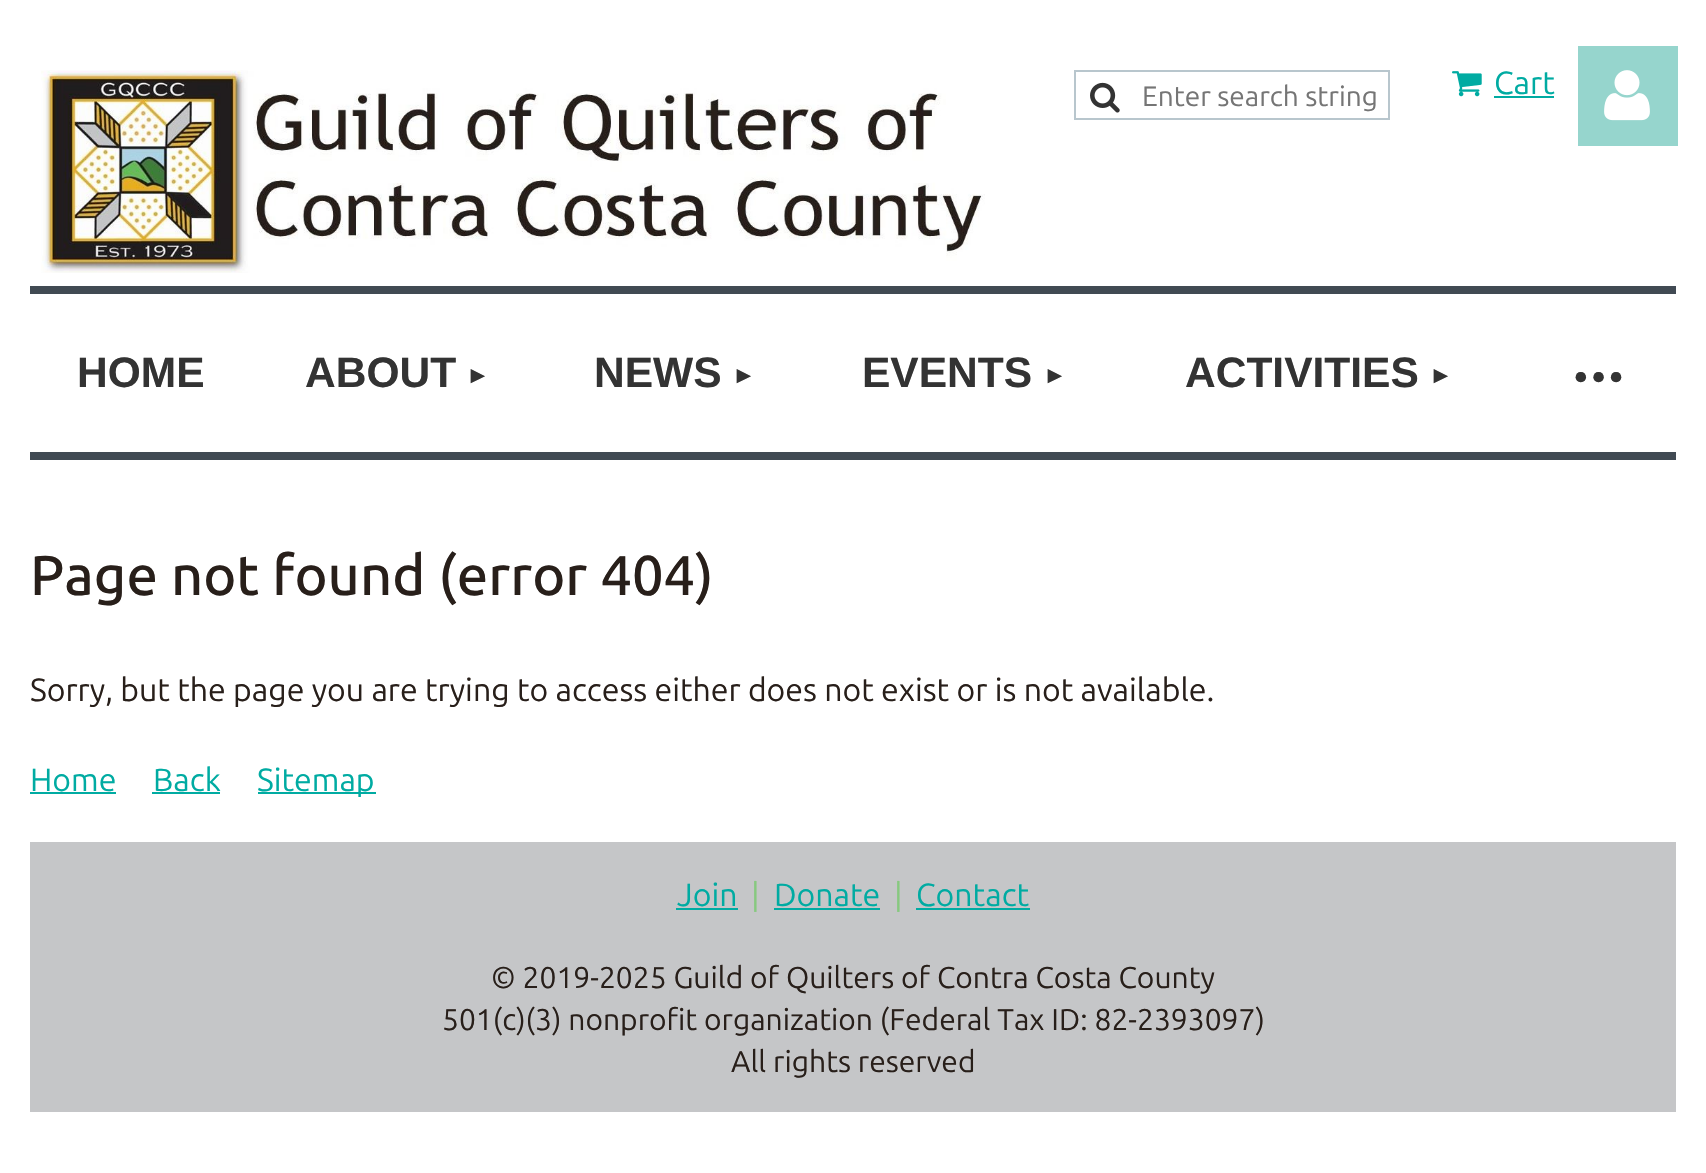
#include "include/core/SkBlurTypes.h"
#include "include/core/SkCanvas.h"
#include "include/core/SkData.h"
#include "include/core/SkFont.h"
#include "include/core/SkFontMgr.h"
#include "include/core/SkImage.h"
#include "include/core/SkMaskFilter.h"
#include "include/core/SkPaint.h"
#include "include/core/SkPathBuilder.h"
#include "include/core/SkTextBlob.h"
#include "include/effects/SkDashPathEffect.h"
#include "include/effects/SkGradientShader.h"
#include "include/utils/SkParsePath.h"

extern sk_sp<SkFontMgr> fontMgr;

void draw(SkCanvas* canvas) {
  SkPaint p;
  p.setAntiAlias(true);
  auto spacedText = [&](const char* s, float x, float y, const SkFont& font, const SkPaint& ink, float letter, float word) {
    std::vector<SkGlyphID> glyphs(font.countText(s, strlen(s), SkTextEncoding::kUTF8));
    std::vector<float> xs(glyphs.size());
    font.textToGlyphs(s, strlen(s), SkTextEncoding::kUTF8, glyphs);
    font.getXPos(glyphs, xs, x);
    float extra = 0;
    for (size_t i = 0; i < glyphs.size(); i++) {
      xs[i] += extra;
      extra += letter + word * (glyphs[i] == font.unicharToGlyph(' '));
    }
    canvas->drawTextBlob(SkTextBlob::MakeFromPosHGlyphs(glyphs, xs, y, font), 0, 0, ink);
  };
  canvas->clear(SK_ColorWHITE);
  canvas->drawImageRect(SkImages::DeferredFromEncodedData(SkData::MakeFromFileName("images/1.png")), SkRect::MakeLTRB(41, 70, 985, 273), SkSamplingOptions());
  p.setStyle(SkPaint::kStroke_Style);
  p.setStrokeWidth(2);
  p.setColor(SkColorSetRGB(184, 198, 205));
  canvas->drawRect(SkRect::MakeLTRB(1075, 71, 1389, 119), p);
  canvas->drawImageRect(SkImages::DeferredFromEncodedData(SkData::MakeFromFileName("images/2.png")), SkRect::MakeLTRB(1090, 82, 1120, 113), SkSamplingOptions());
  canvas->drawImageRect(SkImages::DeferredFromEncodedData(SkData::MakeFromFileName("images/3.png")), SkRect::MakeLTRB(1452, 71, 1482, 97), SkSamplingOptions());
  p.setStyle(SkPaint::kFill_Style);
  p.setColor(SkColorSetRGB(0, 171, 162));
  canvas->drawRect(SkRect::MakeLTRB(1494, 96, 1554, 98), p);
  p.setColor(SkColorSetRGB(150, 213, 205));
  canvas->drawRect(SkRect::MakeLTRB(1578, 46, 1678, 146), p);
  canvas->drawImageRect(SkImages::DeferredFromEncodedData(SkData::MakeFromFileName("images/4.png")), SkRect::MakeLTRB(1604, 70, 1650, 121), SkSamplingOptions());
  p.setColor(SkColorSetRGB(65, 74, 83));
  canvas->drawRect(SkRect::MakeLTRB(30, 286, 1676, 460), p);
  p.setColor(SK_ColorWHITE);
  canvas->drawRect(SkRect::MakeLTRB(30, 294, 1676, 452), p);
  p.setColor(SkColorSetRGB(0, 171, 162));
  canvas->drawRect(SkRect::MakeLTRB(30, 792, 116, 794), p);
  canvas->drawRect(SkRect::MakeLTRB(152, 792, 220, 794), p);
  canvas->drawRect(SkRect::MakeLTRB(258, 792, 376, 794), p);
  p.setColor(SkColorSetRGB(197, 198, 200));
  canvas->drawRect(SkRect::MakeLTRB(30, 842, 1676, 1112), p);
  p.setColor(SkColorSetRGB(0, 171, 162));
  canvas->drawRect(SkRect::MakeLTRB(676, 908, 738, 910), p);
  canvas->drawRect(SkRect::MakeLTRB(774, 908, 880, 910), p);
  canvas->drawRect(SkRect::MakeLTRB(916, 908, 1030, 910), p);
  SkFont font1(fontMgr->matchFamilyStyle("Ubuntu", SkFontStyle::Normal()), 28);
  font1.setSubpixel(true);
  p.setColor(SkColorSetRGB(117, 117, 117));
  canvas->drawString("Enter search string", 1142, 106, font1, p);
  SkFont font2(fontMgr->matchFamilyStyle("Ubuntu", SkFontStyle::Normal()), 32);
  font2.setSubpixel(true);
  p.setColor(SkColorSetRGB(0, 171, 162));
  canvas->drawString("Cart", 1494, 94, font2, p);
  SkFont font3(fontMgr->matchFamilyStyle("Liberation Sans", SkFontStyle::Bold()), 42.5f);
  font3.setSubpixel(true);
  p.setColor(SkColorSetRGB(51, 51, 51));
  canvas->drawString("HOME", 77, 387, font3, p);
  canvas->drawString("ABOUT", 305, 387, font3, p);
  SkFont font4(fontMgr->matchFamilyStyle("Liberation Sans", SkFontStyle::Normal()), 24);
  font4.setSubpixel(true);
  canvas->drawString("►", 466, 383, font4, p);
  canvas->drawString("NEWS", 594, 387, font3, p);
  canvas->drawString("►", 732, 383, font4, p);
  canvas->drawString("EVENTS", 862, 387, font3, p);
  canvas->drawString("►", 1043, 383, font4, p);
  canvas->drawString("ACTIVITIES", 1185, 387, font3, p);
  canvas->drawString("►", 1429, 383, font4, p);
  SkFont font5(fontMgr->matchFamilyStyle("Ubuntu", SkFontStyle::Normal()), 88);
  font5.setSubpixel(true);
  spacedText("···", 1570, 403, font5, p, -4, 0);
  SkFont font6(fontMgr->matchFamilyStyle("Ubuntu", SkFontStyle(500, SkFontStyle::kNormal_Width, SkFontStyle::kUpright_Slant)), 56);
  font6.setSubpixel(true);
  p.setColor(SkColorSetRGB(40, 31, 26));
  canvas->drawString("Page not found (error 404)", 30, 595, font6, p);
  canvas->drawString("Sorry, but the page you are trying to access either does not exist or is not available.", 30, 701, font2, p);
  p.setColor(SkColorSetRGB(0, 171, 162));
  canvas->drawString("Home", 30, 791, font2, p);
  canvas->drawString("Back", 153, 791, font2, p);
  canvas->drawString("Sitemap", 257, 791, font2, p);
  canvas->drawString("Join", 677, 906, font2, p);
  p.setColor(SkColorSetRGB(135, 201, 127));
  canvas->drawString("|", 751, 906, font2, p);
  p.setColor(SkColorSetRGB(0, 171, 162));
  canvas->drawString("Donate", 774, 906, font2, p);
  p.setColor(SkColorSetRGB(135, 201, 127));
  canvas->drawString("|", 894, 906, font2, p);
  p.setColor(SkColorSetRGB(0, 171, 162));
  canvas->drawString("Contact", 916, 906, font2, p);
  SkFont font7(fontMgr->matchFamilyStyle("Ubuntu", SkFontStyle::Normal()), 30);
  font7.setSubpixel(true);
  p.setColor(SkColorSetRGB(40, 31, 26));
  canvas->drawString("© 2019-2025 Guild of Quilters of Contra Costa County", 491, 988, font7, p);
  canvas->drawString("501(c)(3) nonprofit organization (Federal Tax ID: 82-2393097)", 442, 1030, font7, p);
  canvas->drawString("All rights reserved", 731, 1072, font7, p);
}
